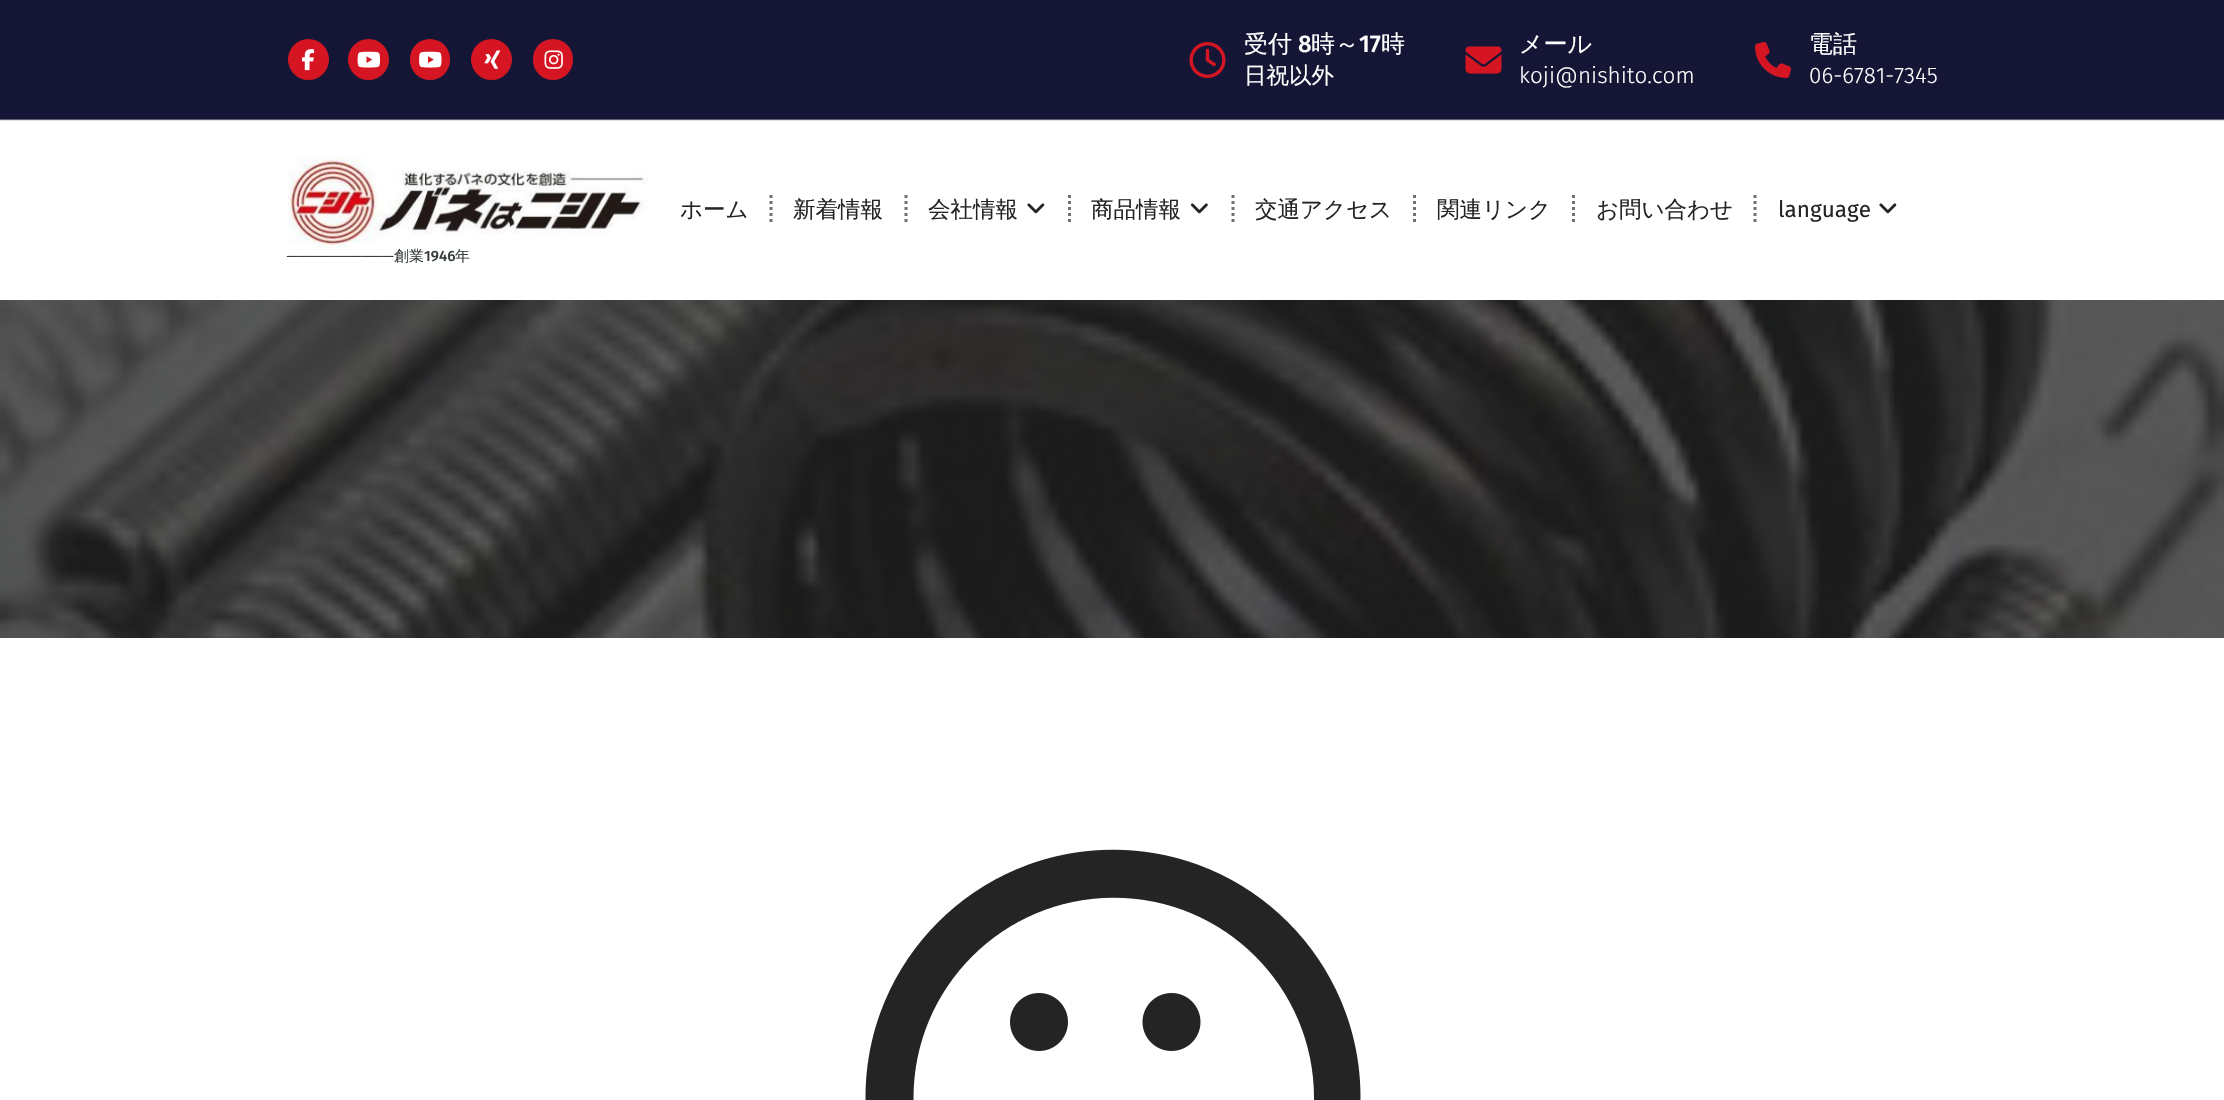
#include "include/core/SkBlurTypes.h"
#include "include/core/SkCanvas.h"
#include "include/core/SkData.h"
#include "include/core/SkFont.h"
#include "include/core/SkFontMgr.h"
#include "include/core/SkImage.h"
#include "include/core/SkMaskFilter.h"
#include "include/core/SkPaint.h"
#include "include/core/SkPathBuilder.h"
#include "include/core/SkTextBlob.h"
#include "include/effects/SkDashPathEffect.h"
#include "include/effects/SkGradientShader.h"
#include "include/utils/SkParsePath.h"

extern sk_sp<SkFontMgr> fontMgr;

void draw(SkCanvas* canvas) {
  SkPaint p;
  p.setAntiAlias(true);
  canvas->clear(SK_ColorWHITE);
  p.setColor(SkColorSetRGB(225, 225, 225));
  canvas->drawRect(SkRect::MakeLTRB(0, 120, 2224, 121), p);
  p.setColor(SkColorSetRGB(21, 22, 53));
  canvas->drawRect(SkRect::MakeLTRB(0, 0, 2224, 119), p);
  p.setColor(SkColorSetRGB(97, 97, 114));
  canvas->drawRect(SkRect::MakeLTRB(0, 119, 2224, 120), p);
  p.setColor(SkColorSetRGB(214, 21, 35));
  canvas->drawCircle(308.5f, 59.5f, 20.5f, p);
  canvas->drawImageRect(SkImages::DeferredFromEncodedData(SkData::MakeFromFileName("images/1.png")), SkRect::MakeLTRB(302, 49, 315, 71), SkSamplingOptions());
  canvas->drawCircle(368.5f, 59.5f, 20.5f, p);
  canvas->drawImageRect(SkImages::DeferredFromEncodedData(SkData::MakeFromFileName("images/2.png")), SkRect::MakeLTRB(357, 51, 380, 68), SkSamplingOptions());
  canvas->drawRoundRect(SkRect::MakeLTRB(410, 39, 450, 80), 20, 20, p);
  canvas->drawImageRect(SkImages::DeferredFromEncodedData(SkData::MakeFromFileName("images/3.png")), SkRect::MakeLTRB(419, 51, 442, 68), SkSamplingOptions());
  canvas->drawCircle(491.5f, 59.5f, 20.5f, p);
  canvas->drawImageRect(SkImages::DeferredFromEncodedData(SkData::MakeFromFileName("images/4.png")), SkRect::MakeLTRB(484, 50, 501, 69), SkSamplingOptions());
  canvas->drawRoundRect(SkRect::MakeLTRB(533, 39, 573, 80), 20, 20, p);
  canvas->drawImageRect(SkImages::DeferredFromEncodedData(SkData::MakeFromFileName("images/5.png")), SkRect::MakeLTRB(544, 50, 563, 69), SkSamplingOptions());
  canvas->drawImageRect(SkImages::DeferredFromEncodedData(SkData::MakeFromFileName("images/6.png")), SkRect::MakeLTRB(1189, 42, 1226, 78), SkSamplingOptions());
  canvas->drawImageRect(SkImages::DeferredFromEncodedData(SkData::MakeFromFileName("images/7.png")), SkRect::MakeLTRB(1465, 46, 1502, 74), SkSamplingOptions());
  canvas->drawImageRect(SkImages::DeferredFromEncodedData(SkData::MakeFromFileName("images/8.png")), SkRect::MakeLTRB(1755, 42, 1791, 78), SkSamplingOptions());
  p.setStyle(SkPaint::kStroke_Style);
  p.setStrokeWidth(3);
  p.setColor(SkColorSetRGB(113, 113, 113));
  p.setPathEffect(SkDashPathEffect::Make({{3, 3}}, 0));
  canvas->drawPath(SkPathBuilder().moveTo(771, 195).lineTo(771, 225).detach(), p);
  p.setPathEffect(nullptr);
  p.setPathEffect(SkDashPathEffect::Make({{3, 3}}, 0));
  canvas->drawPath(SkPathBuilder().moveTo(906, 195).lineTo(906, 225).detach(), p);
  p.setPathEffect(nullptr);
  canvas->drawImageRect(SkImages::DeferredFromEncodedData(SkData::MakeFromFileName("images/9.png")), SkRect::MakeLTRB(1027, 203, 1045, 214), SkSamplingOptions());
  p.setPathEffect(SkDashPathEffect::Make({{3, 3}}, 0));
  canvas->drawPath(SkPathBuilder().moveTo(1069.5f, 195).lineTo(1069.5f, 225).detach(), p);
  p.setPathEffect(nullptr);
  canvas->drawImageRect(SkImages::DeferredFromEncodedData(SkData::MakeFromFileName("images/10.png")), SkRect::MakeLTRB(1190, 203, 1208, 214), SkSamplingOptions());
  p.setPathEffect(SkDashPathEffect::Make({{3, 3}}, 0));
  canvas->drawPath(SkPathBuilder().moveTo(1233, 195).lineTo(1233, 225).detach(), p);
  p.setPathEffect(nullptr);
  p.setPathEffect(SkDashPathEffect::Make({{3, 3}}, 0));
  canvas->drawPath(SkPathBuilder().moveTo(1414.5f, 195).lineTo(1414.5f, 225).detach(), p);
  p.setPathEffect(nullptr);
  p.setPathEffect(SkDashPathEffect::Make({{3, 3}}, 0));
  canvas->drawPath(SkPathBuilder().moveTo(1573.5f, 195).lineTo(1573.5f, 225).detach(), p);
  p.setPathEffect(nullptr);
  p.setPathEffect(SkDashPathEffect::Make({{3, 3}}, 0));
  canvas->drawPath(SkPathBuilder().moveTo(1755, 195).lineTo(1755, 225).detach(), p);
  p.setPathEffect(nullptr);
  canvas->drawImageRect(SkImages::DeferredFromEncodedData(SkData::MakeFromFileName("images/9.png")), SkRect::MakeLTRB(1879, 203, 1897, 214), SkSamplingOptions());
  canvas->drawImageRect(SkImages::DeferredFromEncodedData(SkData::MakeFromFileName("images/11.png")), SkRect::MakeLTRB(288, 156, 648, 250), SkSamplingOptions());
  canvas->drawImageRect(SkImages::DeferredFromEncodedData(SkData::MakeFromFileName("images/12.png")), SkRect::MakeLTRB(0, 300, 2224, 638), SkSamplingOptions());
  canvas->drawImageRect(SkImages::DeferredFromEncodedData(SkData::MakeFromFileName("images/13.png")), SkRect::MakeLTRB(865, 849, 1361, 1100), SkSamplingOptions());
  SkFont font1(fontMgr->matchFamilyStyle("WenQuanYi Zen Hei", SkFontStyle(500, SkFontStyle::kNormal_Width, SkFontStyle::kUpright_Slant)), 24);
  font1.setSubpixel(true);
  p.setStyle(SkPaint::kFill_Style);
  p.setColor(SK_ColorWHITE);
  canvas->drawString("受付", 1244, 52, font1, p);
  SkFont font2(fontMgr->matchFamilyStyle("Fira Sans", SkFontStyle(500, SkFontStyle::kNormal_Width, SkFontStyle::kUpright_Slant)), 24);
  font2.setSubpixel(true);
  canvas->drawString("8", 1298, 52, font2, p);
  canvas->drawString("時～", 1311, 52, font1, p);
  canvas->drawString("17", 1359, 52, font2, p);
  canvas->drawString("時", 1381, 52, font1, p);
  SkFont font3(fontMgr->matchFamilyStyle("WenQuanYi Zen Hei", SkFontStyle(500, SkFontStyle::kNormal_Width, SkFontStyle::kUpright_Slant)), 22.5f);
  font3.setSubpixel(true);
  canvas->drawString("日祝以外", 1244, 83, font3, p);
  canvas->drawString("メール", 1519, 52, font1, p);
  SkFont font4(fontMgr->matchFamilyStyle("Fira Sans", SkFontStyle(300, SkFontStyle::kNormal_Width, SkFontStyle::kUpright_Slant)), 22.5f);
  font4.setSubpixel(true);
  canvas->drawString("koji@nishito.com", 1519, 83, font4, p);
  canvas->drawString("電話", 1809, 52, font1, p);
  canvas->drawString("06-6781-7345", 1809, 83, font4, p);
  p.setColor(SkColorSetRGB(36, 36, 36));
  canvas->drawString("ホーム", 680, 217, font3, p);
  canvas->drawString("新着情報", 793, 217, font3, p);
  canvas->drawString("会社情報", 928, 217, font3, p);
  canvas->drawString("商品情報", 1091, 217, font3, p);
  canvas->drawString("交通アクセス", 1255, 217, font3, p);
  canvas->drawString("関連リンク", 1437, 217, font3, p);
  canvas->drawString("お問い合わせ", 1596, 217, font3, p);
  SkFont font5(fontMgr->matchFamilyStyle("Fira Sans", SkFontStyle::Normal()), 22.5f);
  font5.setSubpixel(true);
  canvas->drawString("language", 1778, 217, font5, p);
  SkFont font6(fontMgr->matchFamilyStyle("Liberation Sans", SkFontStyle::Normal()), 15);
  font6.setSubpixel(true);
  p.setColor(SkColorSetRGB(56, 62, 65));
  canvas->drawString("──────────", 287, 261, font6, p);
  SkFont font7(fontMgr->matchFamilyStyle("WenQuanYi Zen Hei", SkFontStyle(500, SkFontStyle::kNormal_Width, SkFontStyle::kUpright_Slant)), 15);
  font7.setSubpixel(true);
  canvas->drawString("創業", 394, 261, font7, p);
  SkFont font8(fontMgr->matchFamilyStyle("Fira Sans", SkFontStyle(500, SkFontStyle::kNormal_Width, SkFontStyle::kUpright_Slant)), 15);
  font8.setSubpixel(true);
  canvas->drawString("1946", 424, 261, font8, p);
  canvas->drawString("年", 455, 261, font7, p);
}
